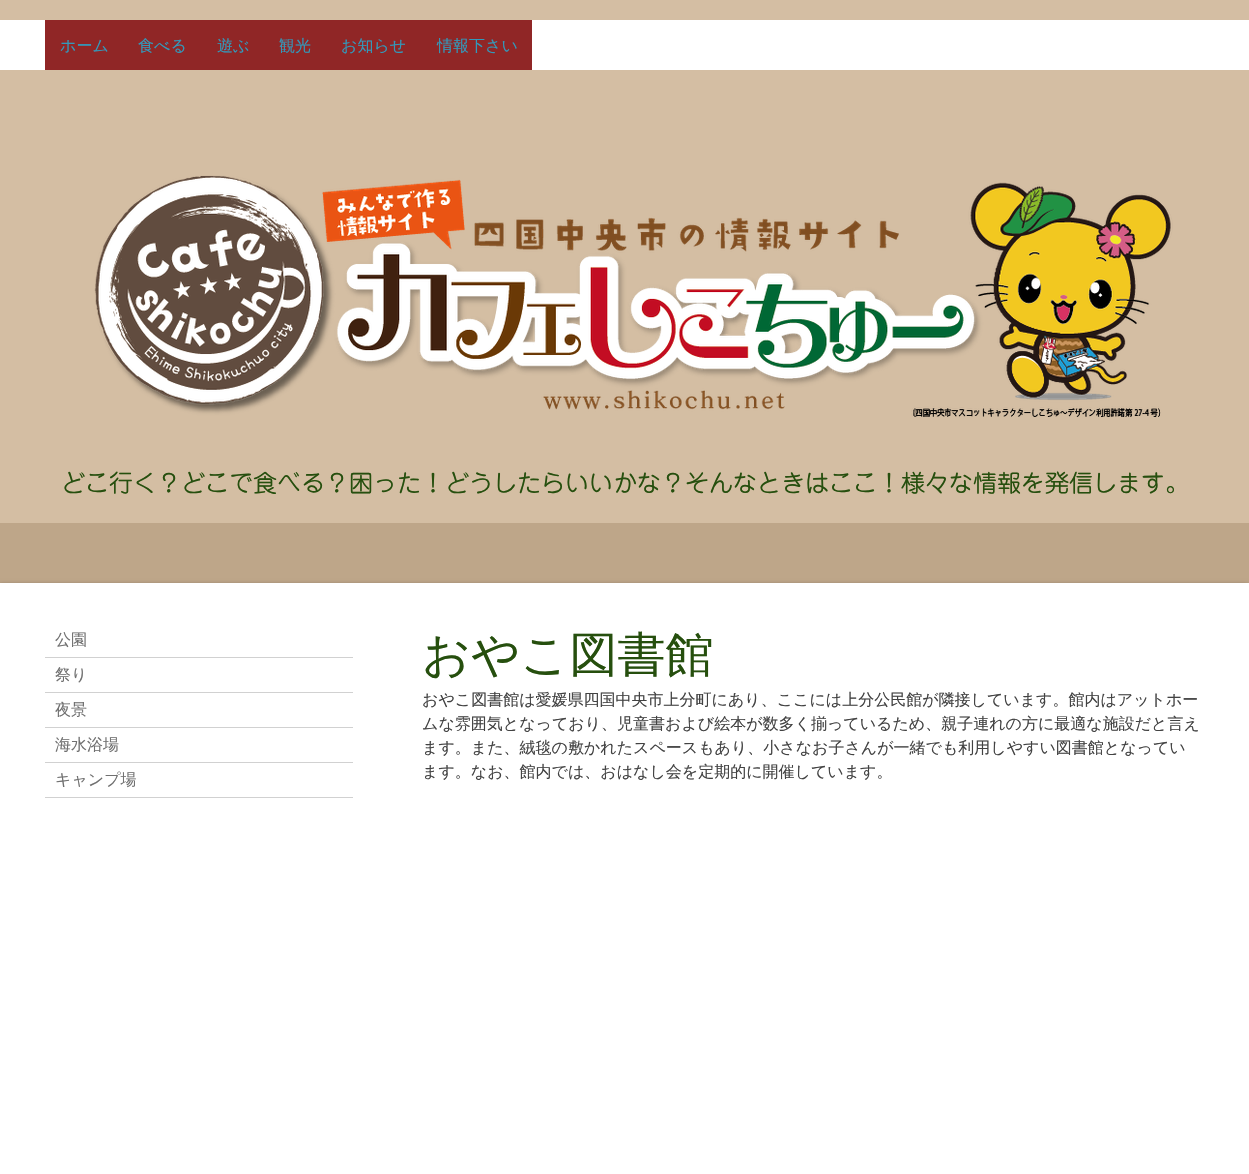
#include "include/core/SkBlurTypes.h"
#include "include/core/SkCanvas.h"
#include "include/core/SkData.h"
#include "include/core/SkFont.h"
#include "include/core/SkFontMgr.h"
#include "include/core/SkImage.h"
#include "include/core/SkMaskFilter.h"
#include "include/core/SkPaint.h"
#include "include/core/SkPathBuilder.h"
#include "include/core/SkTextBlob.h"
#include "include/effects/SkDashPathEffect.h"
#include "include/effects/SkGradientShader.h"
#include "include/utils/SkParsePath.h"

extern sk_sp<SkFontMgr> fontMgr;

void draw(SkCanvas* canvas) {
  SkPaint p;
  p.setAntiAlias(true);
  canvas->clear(SkColorSetRGB(190, 166, 137));
  p.setColor(SkColorSetRGB(212, 190, 163));
  canvas->drawRect(SkRect::MakeLTRB(0, 0, 1249, 523), p);
  p.setColor(SK_ColorWHITE);
  canvas->drawRect(SkRect::MakeLTRB(0, 20, 1249, 70), p);
  p.setColor(SkColorSetRGB(144, 38, 38));
  canvas->drawRect(SkRect::MakeLTRB(45, 20, 532, 70), p);
  canvas->drawImageRect(SkImages::DeferredFromEncodedData(SkData::MakeFromFileName("images/1.png")), SkRect::MakeLTRB(94, 175, 1173, 417), SkSamplingOptions());
  p.setColor(SkColorSetARGB(112, 0, 0, 0));
  p.setMaskFilter(SkMaskFilter::MakeBlur(kNormal_SkBlurStyle, 2.5f));
  canvas->drawRect(SkRect::MakeLTRB(-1, 585, 1248, 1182), p);
  p.setMaskFilter(nullptr);
  p.setColor(SK_ColorWHITE);
  canvas->drawRect(SkRect::MakeLTRB(0, 583, 1249, 1174), p);
  p.setColor(SkColorSetRGB(209, 209, 209));
  canvas->drawRect(SkRect::MakeLTRB(45, 657, 353, 658), p);
  canvas->drawRect(SkRect::MakeLTRB(45, 692, 353, 693), p);
  canvas->drawRect(SkRect::MakeLTRB(45, 727, 353, 728), p);
  canvas->drawRect(SkRect::MakeLTRB(45, 762, 353, 763), p);
  canvas->drawRect(SkRect::MakeLTRB(45, 797, 353, 798), p);
  SkFont font1(fontMgr->matchFamilyStyle("WenQuanYi Zen Hei", SkFontStyle(500, SkFontStyle::kNormal_Width, SkFontStyle::kUpright_Slant)), 16);
  font1.setSubpixel(true);
  p.setColor(SkColorSetRGB(50, 153, 187));
  canvas->drawString("ホーム", 60, 51, font1, p);
  canvas->drawString("食べる", 138, 51, font1, p);
  canvas->drawString("遊ぶ", 217, 51, font1, p);
  canvas->drawString("観光", 279, 51, font1, p);
  canvas->drawString("お知らせ", 341, 51, font1, p);
  canvas->drawString("情報下さい", 437, 51, font1, p);
  SkFont font2(fontMgr->matchFamilyStyle("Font", SkFontStyle::Normal()), 24);
  font2.setSubpixel(true);
  p.setColor(SkColorSetRGB(38, 79, 14));
  canvas->drawString("どこ行く？どこで食べる？困った！どうしたらいいかな？そんなときはここ！様々な情報を発信します。", 61, 492, font2, p);
  p.setColor(SkColorSetRGB(112, 112, 112));
  canvas->drawString("公園", 55, 645, font1, p);
  canvas->drawString("祭り", 55, 680, font1, p);
  canvas->drawString("夜景", 55, 715, font1, p);
  canvas->drawString("海水浴場", 55, 750, font1, p);
  canvas->drawString("キャンプ場", 55, 785, font1, p);
  SkFont font3(fontMgr->matchFamilyStyle("WenQuanYi Zen Hei", SkFontStyle(500, SkFontStyle::kNormal_Width, SkFontStyle::kUpright_Slant)), 48);
  font3.setSubpixel(true);
  p.setColor(SkColorSetRGB(38, 79, 14));
  canvas->drawString("おやこ図書館", 422, 671, font3, p);
  p.setColor(SkColorSetRGB(66, 66, 66));
  canvas->drawString("おやこ図書館は愛媛県四国中央市上分町にあり、ここには上分公民館が隣接しています。館内はアットホー", 422, 705, font1, p);
  canvas->drawString("ムな雰囲気となっており、児童書および絵本が数多く揃っているため、親子連れの方に最適な施設だと言え", 422, 729, font1, p);
  canvas->drawString("ます。また、絨毯の敷かれたスペースもあり、小さなお子さんが一緒でも利用しやすい図書館となってい", 422, 753, font1, p);
  canvas->drawString("ます。なお、館内では、おはなし会を定期的に開催しています。", 422, 777, font1, p);
}
